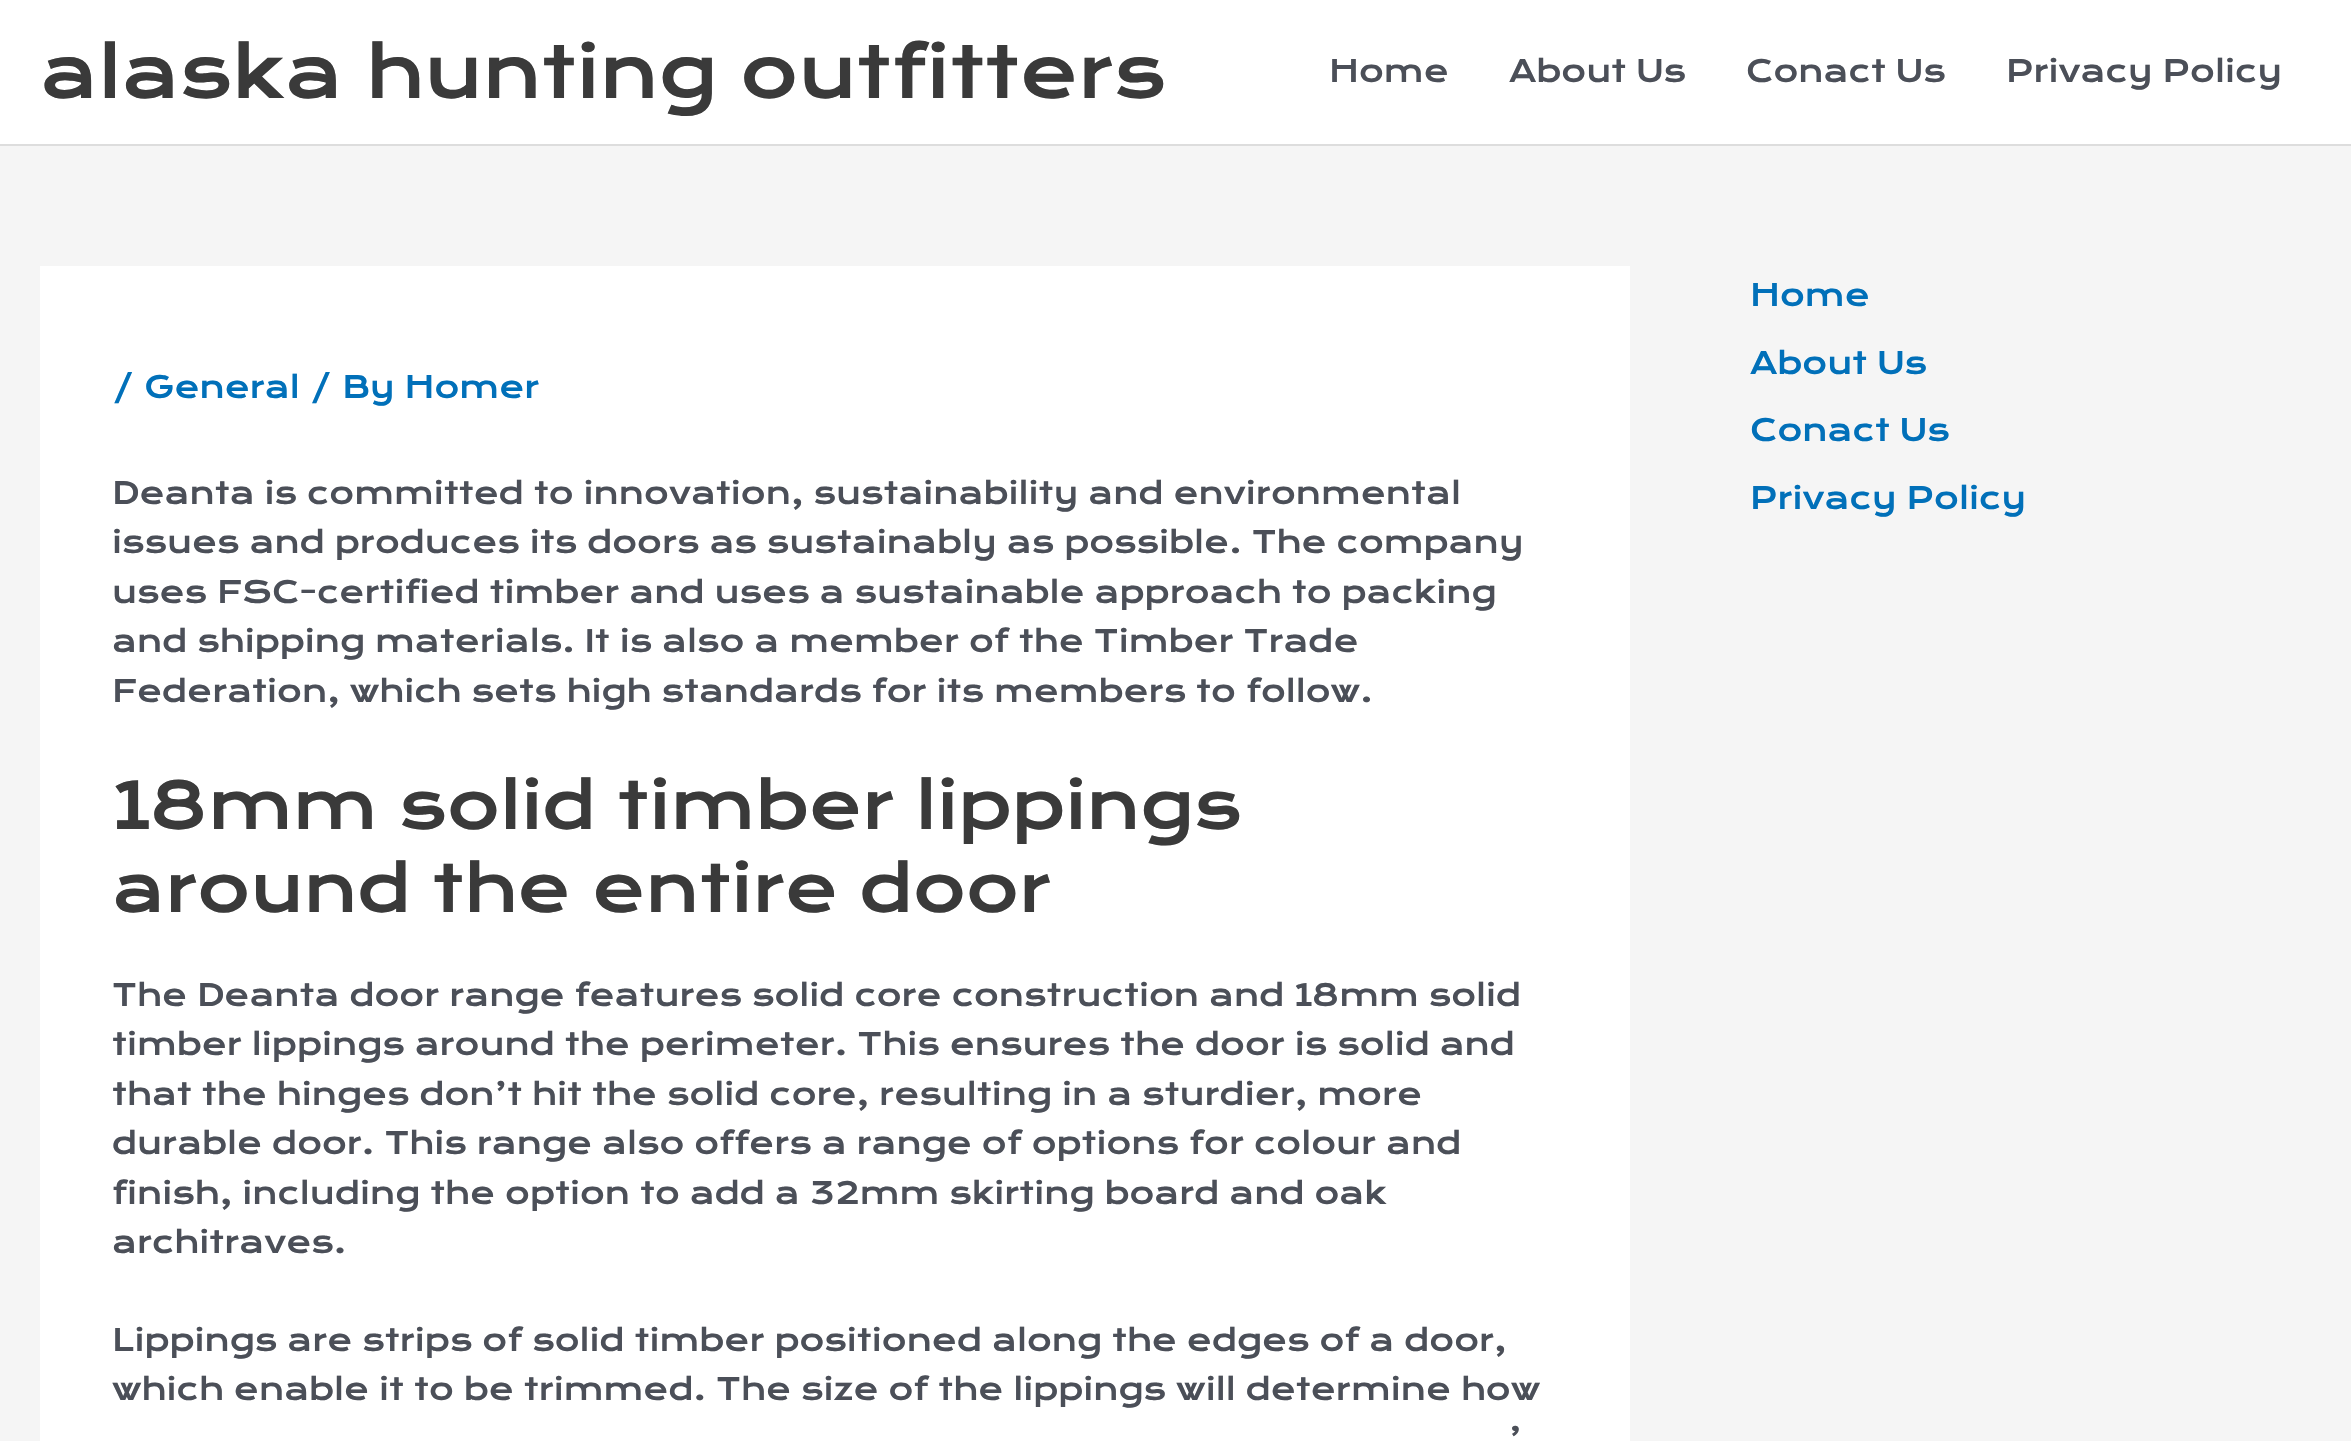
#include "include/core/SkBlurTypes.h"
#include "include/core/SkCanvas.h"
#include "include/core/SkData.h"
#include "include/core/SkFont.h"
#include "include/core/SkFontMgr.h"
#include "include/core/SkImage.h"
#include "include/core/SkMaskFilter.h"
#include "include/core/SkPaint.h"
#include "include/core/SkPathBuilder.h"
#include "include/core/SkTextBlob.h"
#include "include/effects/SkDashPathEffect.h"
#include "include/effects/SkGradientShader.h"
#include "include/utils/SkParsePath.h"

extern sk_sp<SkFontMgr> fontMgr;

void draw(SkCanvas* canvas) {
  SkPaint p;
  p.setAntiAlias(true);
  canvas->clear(SkColorSetRGB(245, 245, 245));
  p.setColor(SK_ColorWHITE);
  canvas->drawRect(SkRect::MakeLTRB(0, 0, 2351, 144), p);
  p.setColor(SkColorSetRGB(221, 221, 221));
  canvas->drawRect(SkRect::MakeLTRB(0, 144, 2351, 146), p);
  p.setColor(SK_ColorWHITE);
  canvas->drawRect(SkRect::MakeLTRB(40, 266, 1630, 1441), p);
  SkFont font1(fontMgr->matchFamilyStyle("Krona One", SkFontStyle::Normal()), 70);
  font1.setSubpixel(true);
  p.setColor(SkColorSetRGB(58, 58, 58));
  canvas->drawString("alaska hunting outfitters", 40, 98, font1, p);
  SkFont font2(fontMgr->matchFamilyStyle("Krona One", SkFontStyle::Normal()), 30);
  font2.setSubpixel(true);
  p.setColor(SkColorSetRGB(75, 79, 88));
  canvas->drawString("Home", 1329, 82, font2, p);
  canvas->drawString("About Us", 1509, 82, font2, p);
  canvas->drawString("Conact Us", 1746, 82, font2, p);
  canvas->drawString("Privacy Policy", 2006, 82, font2, p);
  p.setColor(SkColorSetRGB(1, 112, 185));
  canvas->drawString("/ General / By Homer", 112, 398, font2, p);
  p.setColor(SkColorSetRGB(75, 79, 88));
  canvas->drawString("Deanta is committed to innovation, sustainability and environmental", 112, 504, font2, p);
  canvas->drawString("issues and produces its doors as sustainably as possible. The company", 112, 553, font2, p);
  canvas->drawString("uses FSC-certified timber and uses a sustainable approach to packing", 112, 603, font2, p);
  canvas->drawString("and shipping materials. It is also a member of the Timber Trade", 112, 652, font2, p);
  canvas->drawString("Federation, which sets high standards for its members to follow.", 112, 702, font2, p);
  SkFont font3(fontMgr->matchFamilyStyle("Krona One", SkFontStyle::Normal()), 64);
  font3.setSubpixel(true);
  p.setColor(SkColorSetRGB(58, 58, 58));
  canvas->drawString("18mm solid timber lippings", 112, 829, font3, p);
  canvas->drawString("around the entire door", 112, 912, font3, p);
  p.setColor(SkColorSetRGB(75, 79, 88));
  canvas->drawString("The Deanta door range features solid core construction and 18mm solid", 112, 1006, font2, p);
  canvas->drawString("timber lippings around the perimeter. This ensures the door is solid and", 112, 1055, font2, p);
  canvas->drawString("that the hinges don’t hit the solid core, resulting in a sturdier, more", 112, 1105, font2, p);
  canvas->drawString("durable door. This range also offers a range of options for colour and", 112, 1154, font2, p);
  canvas->drawString("finish, including the option to add a 32mm skirting board and oak", 112, 1204, font2, p);
  canvas->drawString("architraves.", 112, 1253, font2, p);
  canvas->drawString("Lippings are strips of solid timber positioned along the edges of a door,", 112, 1351, font2, p);
  canvas->drawString("which enable it to be trimmed. The size of the lippings will determine how", 112, 1400, font2, p);
  canvas->drawString("’", 1509, 1450, font2, p);
  p.setColor(SkColorSetRGB(1, 112, 185));
  canvas->drawString("Home", 1750, 306, font2, p);
  canvas->drawString("About Us", 1750, 374, font2, p);
  canvas->drawString("Conact Us", 1750, 441, font2, p);
  canvas->drawString("Privacy Policy", 1750, 509, font2, p);
}
